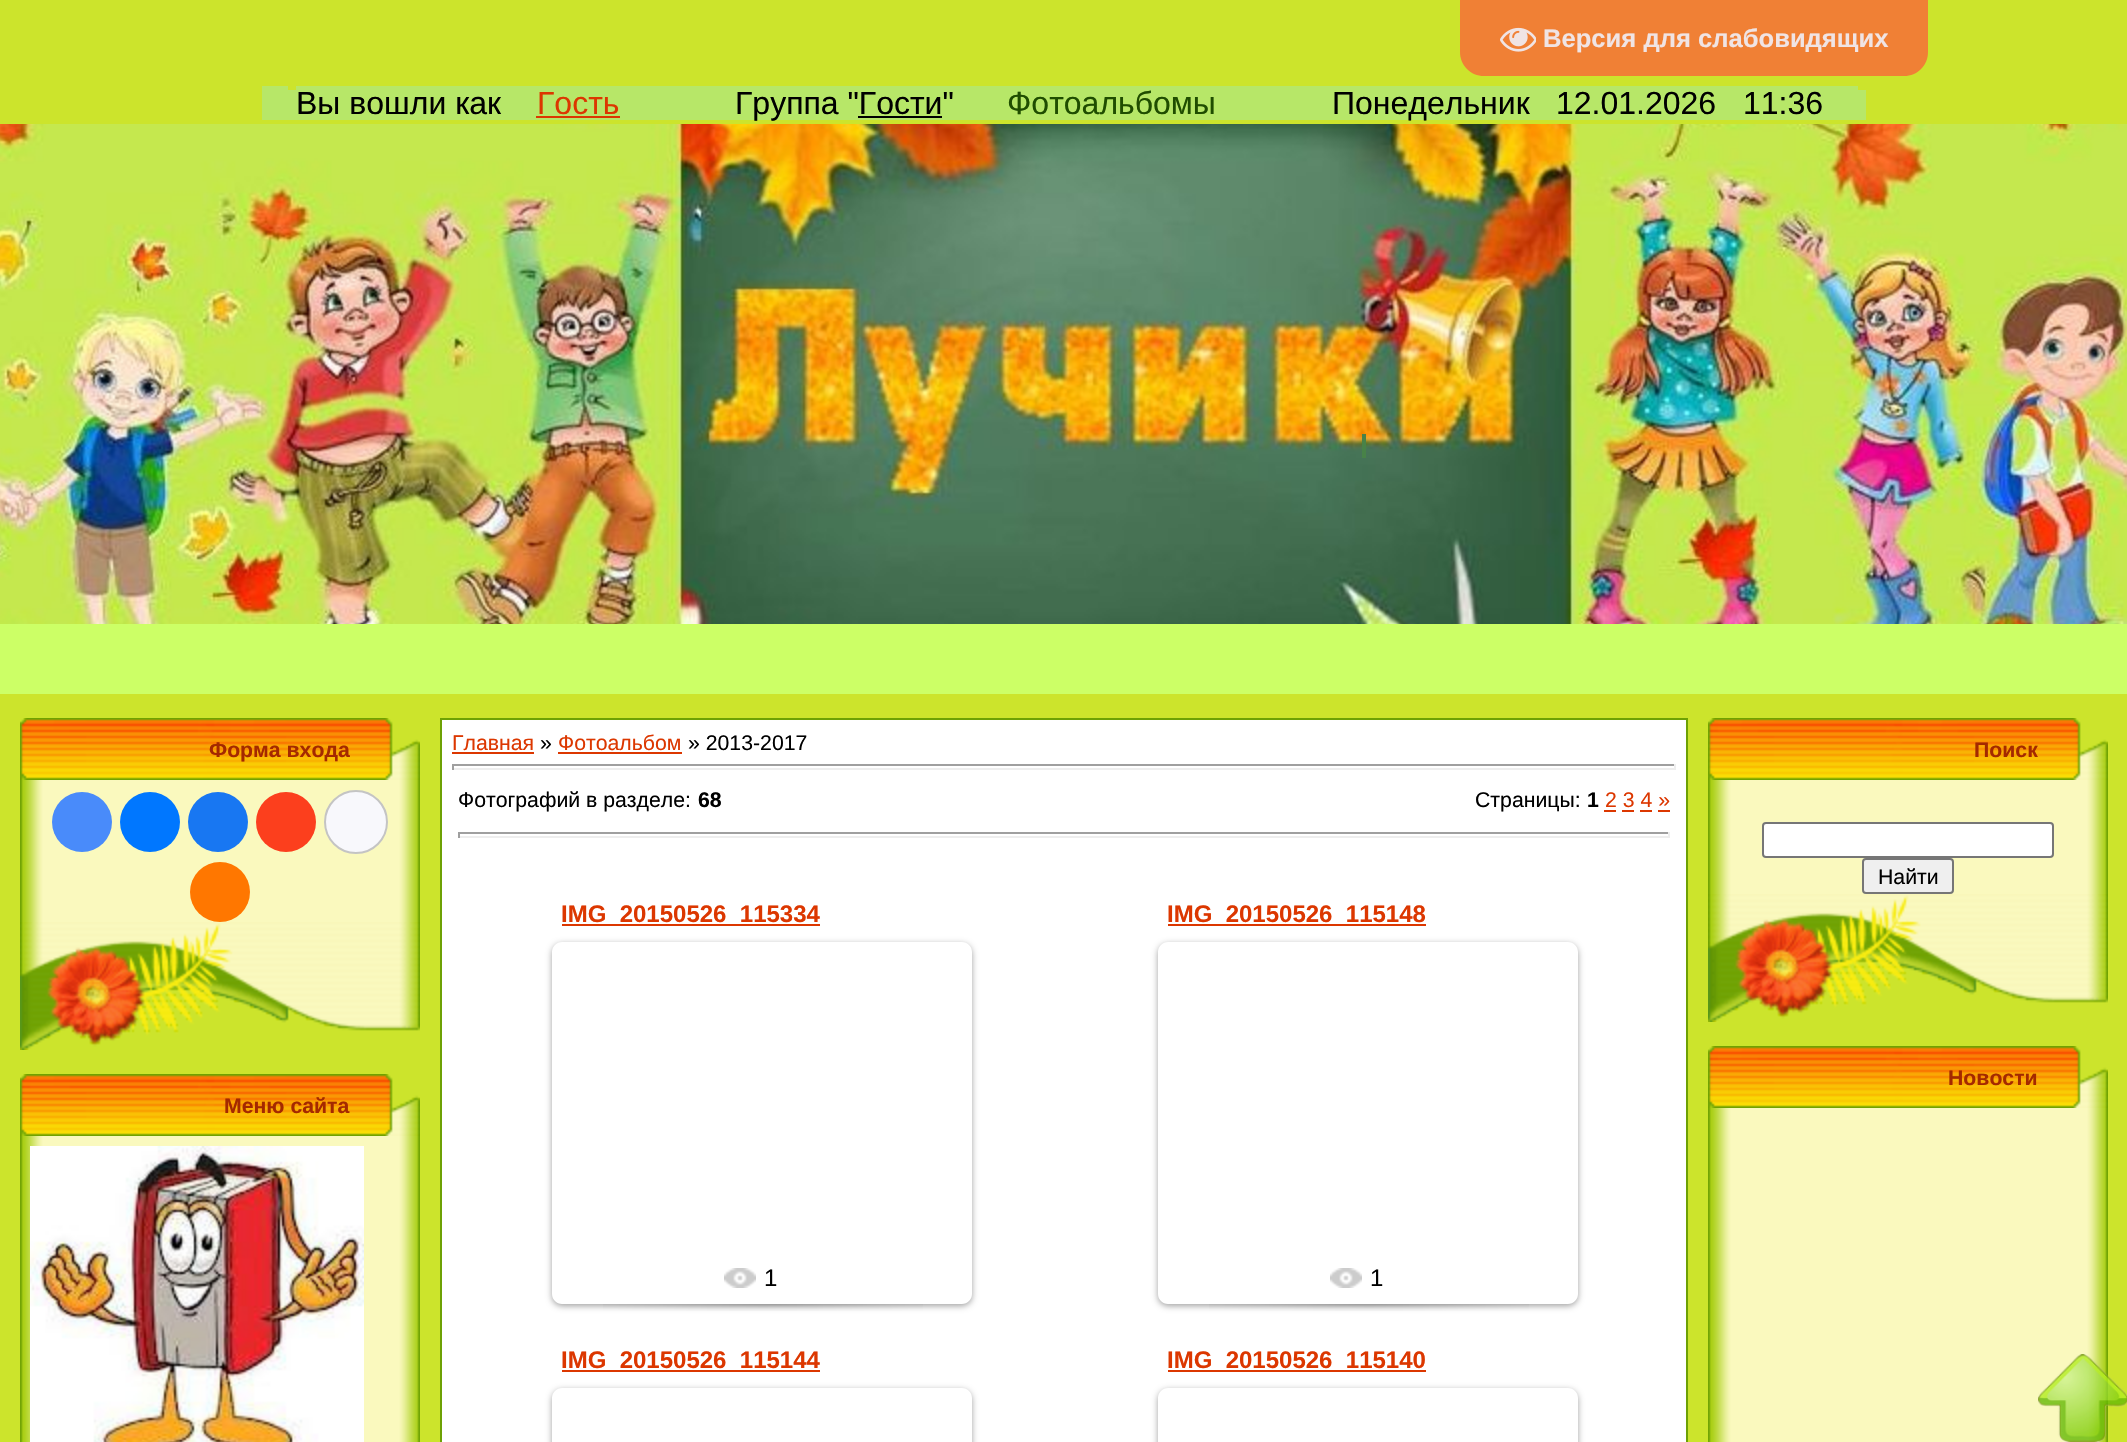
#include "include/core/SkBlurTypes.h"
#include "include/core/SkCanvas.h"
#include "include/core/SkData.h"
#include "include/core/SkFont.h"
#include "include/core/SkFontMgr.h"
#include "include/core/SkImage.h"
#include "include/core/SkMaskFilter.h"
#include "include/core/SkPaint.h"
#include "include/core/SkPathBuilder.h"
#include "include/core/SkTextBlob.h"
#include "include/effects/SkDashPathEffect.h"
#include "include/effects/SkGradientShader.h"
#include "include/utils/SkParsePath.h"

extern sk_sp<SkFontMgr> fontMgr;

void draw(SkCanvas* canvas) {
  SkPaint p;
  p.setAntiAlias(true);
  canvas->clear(SkColorSetRGB(204, 228, 44));
  p.setColor(SkColorSetRGB(240, 128, 53));
  canvas->drawPath(SkPathBuilder().moveTo(1460, 0).lineTo(1928, 0).lineTo(1928, 52).cubicTo(1928, 65.5f, 1917.5f, 76, 1904, 76).lineTo(1484, 76).cubicTo(1470.5f, 76, 1460, 65.5f, 1460, 52).close().detach(), p);
  canvas->drawImageRect(SkImages::DeferredFromEncodedData(SkData::MakeFromFileName("images/1.png")), SkRect::MakeLTRB(1500, 27, 1536, 52), SkSamplingOptions());
  p.setColor(SkColorSetRGB(183, 231, 104));
  canvas->drawRect(SkRect::MakeLTRB(262, 86, 288, 120), p);
  canvas->drawRect(SkRect::MakeLTRB(288, 90, 296, 120), p);
  canvas->drawRect(SkRect::MakeLTRB(296, 86, 1858, 120), p);
  p.setColor(SkColorSetRGB(220, 55, 0));
  canvas->drawRect(SkRect::MakeLTRB(536, 116, 620, 118), p);
  p.setColor(SK_ColorBLACK);
  canvas->drawRect(SkRect::MakeLTRB(858, 116, 942, 118), p);
  p.setColor(SkColorSetRGB(183, 231, 104));
  canvas->drawRect(SkRect::MakeLTRB(1858, 90, 1866, 120), p);
  canvas->drawImageRect(SkImages::DeferredFromEncodedData(SkData::MakeFromFileName("images/2.png")), SkRect::MakeLTRB(0, 124, 2127, 624), SkSamplingOptions());
  p.setColor(SkColorSetRGB(72, 130, 72));
  canvas->drawRect(SkRect::MakeLTRB(1362, 434, 1366, 458), p);
  p.setColor(SkColorSetRGB(204, 255, 102));
  canvas->drawRect(SkRect::MakeLTRB(0, 624, 2127, 694), p);
  canvas->drawImageRect(SkImages::DeferredFromEncodedData(SkData::MakeFromFileName("images/3.png")), SkRect::MakeLTRB(20, 718, 420, 780), SkSamplingOptions());
  canvas->drawImageRect(SkImages::DeferredFromEncodedData(SkData::MakeFromFileName("images/4.png")), SkRect::MakeLTRB(20, 780, 420, 922), SkSamplingOptions());
  p.setColor(SkColorSetRGB(73, 139, 250));
  canvas->drawCircle(82, 822, 30, p);
  p.setColor(SkColorSetRGB(0, 119, 255));
  canvas->drawCircle(150, 822, 30, p);
  p.setColor(SkColorSetRGB(24, 119, 242));
  canvas->drawCircle(218, 822, 30, p);
  p.setColor(SkColorSetRGB(252, 63, 29));
  canvas->drawCircle(286, 822, 30, p);
  p.setColor(SkColorSetRGB(248, 248, 252));
  canvas->drawCircle(356, 822, 31, p);
  p.setStyle(SkPaint::kStroke_Style);
  p.setStrokeWidth(2);
  p.setColor(SkColorSetRGB(196, 196, 196));
  canvas->drawCircle(356, 822, 31, p);
  p.setStyle(SkPaint::kFill_Style);
  p.setColor(SkColorSetRGB(255, 119, 0));
  canvas->drawCircle(220, 892, 30, p);
  canvas->drawImageRect(SkImages::DeferredFromEncodedData(SkData::MakeFromFileName("images/5.png")), SkRect::MakeLTRB(20, 922, 420, 1050), SkSamplingOptions());
  canvas->drawImageRect(SkImages::DeferredFromEncodedData(SkData::MakeFromFileName("images/3.png")), SkRect::MakeLTRB(20, 1074, 420, 1136), SkSamplingOptions());
  canvas->drawImageRect(SkImages::DeferredFromEncodedData(SkData::MakeFromFileName("images/6.png")), SkRect::MakeLTRB(20, 1136, 420, 1442), SkSamplingOptions());
  canvas->drawImageRect(SkImages::DeferredFromEncodedData(SkData::MakeFromFileName("images/7.png")), SkRect::MakeLTRB(30, 1146, 364, 1442), SkSamplingOptions());
  p.setStyle(SkPaint::kStroke_Style);
  p.setColor(SkColorSetRGB(109, 161, 4));
  canvas->drawRect(SkRect::MakeLTRB(441, 719, 1687, 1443), p);
  p.setStyle(SkPaint::kFill_Style);
  p.setColor(SK_ColorWHITE);
  canvas->drawRect(SkRect::MakeLTRB(442, 720, 1686, 1442), p);
  p.setColor(SkColorSetRGB(220, 55, 0));
  canvas->drawRect(SkRect::MakeLTRB(452, 752, 534, 754), p);
  canvas->drawRect(SkRect::MakeLTRB(558, 752, 682, 754), p);
  p.setColor(SkColorSetRGB(159, 159, 159));
  canvas->drawRect(SkRect::MakeLTRB(452, 764, 1676, 766), p);
  p.setColor(SkColorSetRGB(238, 238, 238));
  canvas->drawRect(SkRect::MakeLTRB(1674, 764, 1676, 770), p);
  canvas->drawRect(SkRect::MakeLTRB(452, 768, 1676, 770), p);
  p.setColor(SkColorSetRGB(159, 159, 159));
  canvas->drawRect(SkRect::MakeLTRB(452, 764, 454, 770), p);
  p.setColor(SkColorSetRGB(220, 55, 0));
  canvas->drawRect(SkRect::MakeLTRB(1604, 810, 1616, 812), p);
  canvas->drawRect(SkRect::MakeLTRB(1622, 810, 1634, 812), p);
  canvas->drawRect(SkRect::MakeLTRB(1640, 810, 1652, 812), p);
  canvas->drawRect(SkRect::MakeLTRB(1658, 810, 1670, 812), p);
  p.setColor(SkColorSetRGB(159, 159, 159));
  canvas->drawRect(SkRect::MakeLTRB(458, 832, 1670, 834), p);
  p.setColor(SkColorSetRGB(238, 238, 238));
  canvas->drawRect(SkRect::MakeLTRB(1668, 832, 1670, 838), p);
  canvas->drawRect(SkRect::MakeLTRB(458, 836, 1670, 838), p);
  p.setColor(SkColorSetRGB(159, 159, 159));
  canvas->drawRect(SkRect::MakeLTRB(458, 832, 460, 838), p);
  p.setColor(SkColorSetRGB(220, 55, 0));
  canvas->drawRect(SkRect::MakeLTRB(562, 924, 820, 926), p);
  canvas->save();
  canvas->clipPath(SkPathBuilder(SkPathFillType::kEvenOdd).moveTo(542, 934).lineTo(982, 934).lineTo(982, 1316).lineTo(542, 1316).close().moveTo(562, 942).lineTo(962, 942).cubicTo(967.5f, 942, 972, 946.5f, 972, 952).lineTo(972, 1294).cubicTo(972, 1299.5f, 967.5f, 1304, 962, 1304).lineTo(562, 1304).cubicTo(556.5f, 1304, 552, 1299.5f, 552, 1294).lineTo(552, 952).cubicTo(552, 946.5f, 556.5f, 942, 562, 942).close().detach(), true);
  p.setColor(SkColorSetARGB(94, 0, 0, 0));
  p.setMaskFilter(SkMaskFilter::MakeBlur(kNormal_SkBlurStyle, 3));
  canvas->drawRoundRect(SkRect::MakeLTRB(552, 944, 972, 1306), 10, 10, p);
  p.setMaskFilter(nullptr);
  canvas->restore();
  canvas->drawImageRect(SkImages::DeferredFromEncodedData(SkData::MakeFromFileName("images/8.png")), SkRect::MakeLTRB(724, 1268, 756, 1288), SkSamplingOptions());
  canvas->drawImageRect(SkImages::DeferredFromEncodedData(SkData::MakeFromFileName("images/9.png")), SkRect::MakeLTRB(603, 1304, 923, 1311), SkSamplingOptions());
  p.setColor(SkColorSetRGB(220, 55, 0));
  canvas->drawRect(SkRect::MakeLTRB(1168, 924, 1426, 926), p);
  canvas->save();
  canvas->clipPath(SkPathBuilder(SkPathFillType::kEvenOdd).moveTo(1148, 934).lineTo(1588, 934).lineTo(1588, 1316).lineTo(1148, 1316).close().moveTo(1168, 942).lineTo(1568, 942).cubicTo(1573.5f, 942, 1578, 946.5f, 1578, 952).lineTo(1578, 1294).cubicTo(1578, 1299.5f, 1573.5f, 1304, 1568, 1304).lineTo(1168, 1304).cubicTo(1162.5f, 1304, 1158, 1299.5f, 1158, 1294).lineTo(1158, 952).cubicTo(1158, 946.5f, 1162.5f, 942, 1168, 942).close().detach(), true);
  p.setColor(SkColorSetARGB(94, 0, 0, 0));
  p.setMaskFilter(SkMaskFilter::MakeBlur(kNormal_SkBlurStyle, 3));
  canvas->drawRoundRect(SkRect::MakeLTRB(1158, 944, 1578, 1306), 10, 10, p);
  p.setMaskFilter(nullptr);
  canvas->restore();
  canvas->drawImageRect(SkImages::DeferredFromEncodedData(SkData::MakeFromFileName("images/8.png")), SkRect::MakeLTRB(1330, 1268, 1362, 1288), SkSamplingOptions());
  canvas->drawImageRect(SkImages::DeferredFromEncodedData(SkData::MakeFromFileName("images/9.png")), SkRect::MakeLTRB(1209, 1304, 1529, 1311), SkSamplingOptions());
  p.setColor(SkColorSetRGB(220, 55, 0));
  canvas->drawRect(SkRect::MakeLTRB(562, 1370, 820, 1372), p);
  canvas->save();
  canvas->clipPath(SkPathBuilder(SkPathFillType::kEvenOdd).moveTo(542, 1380).lineTo(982, 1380).lineTo(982, 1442).lineTo(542, 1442).close().moveTo(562, 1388).lineTo(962, 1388).cubicTo(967.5f, 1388, 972, 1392.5f, 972, 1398).lineTo(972, 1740).cubicTo(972, 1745.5f, 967.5f, 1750, 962, 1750).lineTo(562, 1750).cubicTo(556.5f, 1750, 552, 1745.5f, 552, 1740).lineTo(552, 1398).cubicTo(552, 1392.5f, 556.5f, 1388, 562, 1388).close().detach(), true);
  p.setColor(SkColorSetARGB(94, 0, 0, 0));
  p.setMaskFilter(SkMaskFilter::MakeBlur(kNormal_SkBlurStyle, 3));
  canvas->drawRoundRect(SkRect::MakeLTRB(552, 1390, 972, 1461), 10, 10, p);
  p.setMaskFilter(nullptr);
  canvas->restore();
  p.setColor(SkColorSetRGB(220, 55, 0));
  canvas->drawRect(SkRect::MakeLTRB(1168, 1370, 1426, 1372), p);
  canvas->save();
  canvas->clipPath(SkPathBuilder(SkPathFillType::kEvenOdd).moveTo(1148, 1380).lineTo(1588, 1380).lineTo(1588, 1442).lineTo(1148, 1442).close().moveTo(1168, 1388).lineTo(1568, 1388).cubicTo(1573.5f, 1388, 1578, 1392.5f, 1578, 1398).lineTo(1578, 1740).cubicTo(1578, 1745.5f, 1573.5f, 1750, 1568, 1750).lineTo(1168, 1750).cubicTo(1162.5f, 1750, 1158, 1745.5f, 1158, 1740).lineTo(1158, 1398).cubicTo(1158, 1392.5f, 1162.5f, 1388, 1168, 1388).close().detach(), true);
  p.setColor(SkColorSetARGB(94, 0, 0, 0));
  p.setMaskFilter(SkMaskFilter::MakeBlur(kNormal_SkBlurStyle, 3));
  canvas->drawRoundRect(SkRect::MakeLTRB(1158, 1390, 1578, 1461), 10, 10, p);
  p.setMaskFilter(nullptr);
  canvas->restore();
  canvas->drawImageRect(SkImages::DeferredFromEncodedData(SkData::MakeFromFileName("images/3.png")), SkRect::MakeLTRB(1708, 718, 2108, 780), SkSamplingOptions());
  canvas->drawImageRect(SkImages::DeferredFromEncodedData(SkData::MakeFromFileName("images/10.png")), SkRect::MakeLTRB(1708, 780, 2108, 894), SkSamplingOptions());
  p.setColor(SK_ColorWHITE);
  canvas->drawRoundRect(SkRect::MakeLTRB(1763, 823, 2053, 857), 3, 3, p);
  p.setStyle(SkPaint::kStroke_Style);
  p.setColor(SkColorSetRGB(118, 118, 118));
  canvas->drawRoundRect(SkRect::MakeLTRB(1763, 823, 2053, 857), 3, 3, p);
  p.setStyle(SkPaint::kFill_Style);
  p.setColor(SkColorSetRGB(239, 239, 239));
  canvas->drawRoundRect(SkRect::MakeLTRB(1863, 859, 1953, 893), 3, 3, p);
  p.setStyle(SkPaint::kStroke_Style);
  p.setColor(SkColorSetRGB(118, 118, 118));
  canvas->drawRoundRect(SkRect::MakeLTRB(1863, 859, 1953, 893), 3, 3, p);
  canvas->drawImageRect(SkImages::DeferredFromEncodedData(SkData::MakeFromFileName("images/5.png")), SkRect::MakeLTRB(1708, 894, 2108, 1022), SkSamplingOptions());
  canvas->drawImageRect(SkImages::DeferredFromEncodedData(SkData::MakeFromFileName("images/3.png")), SkRect::MakeLTRB(1708, 1046, 2108, 1108), SkSamplingOptions());
  canvas->drawImageRect(SkImages::DeferredFromEncodedData(SkData::MakeFromFileName("images/11.png")), SkRect::MakeLTRB(1708, 1108, 2108, 1442), SkSamplingOptions());
  canvas->drawImageRect(SkImages::DeferredFromEncodedData(SkData::MakeFromFileName("images/12.png")), SkRect::MakeLTRB(2038, 1354, 2127, 1442), SkSamplingOptions());
  SkFont font1(fontMgr->matchFamilyStyle("Liberation Sans", SkFontStyle::Bold()), 25.6f);
  font1.setSubpixel(true);
  p.setStyle(SkPaint::kFill_Style);
  p.setColor(SkColorSetRGB(240, 228, 228));
  canvas->drawString("Версия для слабовидящих", 1543, 47, font1, p);
  SkFont font2(fontMgr->matchFamilyStyle("Liberation Sans", SkFontStyle::Normal()), 32);
  font2.setSubpixel(true);
  p.setColor(SK_ColorBLACK);
  canvas->drawString("Вы вошли как", 296, 114, font2, p);
  p.setColor(SkColorSetRGB(220, 55, 0));
  canvas->drawString("Гость", 537, 114, font2, p);
  p.setColor(SK_ColorBLACK);
  canvas->drawString("Группа \"Гости\"", 735, 114, font2, p);
  p.setColor(SkColorSetRGB(31, 77, 0));
  canvas->drawString("Фотоальбомы", 1007, 114, font2, p);
  p.setColor(SK_ColorBLACK);
  canvas->drawString("Понедельник", 1332, 114, font2, p);
  canvas->drawString("12.01.2026", 1556, 114, font2, p);
  canvas->drawString("11:36", 1743, 114, font2, p);
  SkFont font3(fontMgr->matchFamilyStyle("Liberation Sans", SkFontStyle::Bold()), 21.25f);
  font3.setSubpixel(true);
  p.setColor(SkColorSetRGB(164, 41, 0));
  canvas->drawString("Форма входа", 209, 757, font3, p);
  canvas->drawString("Меню сайта", 224, 1113, font3, p);
  SkFont font4(fontMgr->matchFamilyStyle("Liberation Sans", SkFontStyle::Normal()), 21.25f);
  font4.setSubpixel(true);
  p.setColor(SkColorSetRGB(220, 55, 0));
  canvas->drawString("Главная", 452, 750, font4, p);
  p.setColor(SK_ColorBLACK);
  canvas->drawString("»", 540, 750, font4, p);
  p.setColor(SkColorSetRGB(220, 55, 0));
  canvas->drawString("Фотоальбом", 558, 750, font4, p);
  p.setColor(SK_ColorBLACK);
  canvas->drawString("» 2013-2017", 688, 750, font4, p);
  canvas->drawString("Фотографий в разделе:", 458, 807, font4, p);
  canvas->drawString("68", 698, 807, font3, p);
  canvas->drawString("Страницы:", 1475, 807, font4, p);
  canvas->drawString("1", 1587, 807, font3, p);
  p.setColor(SkColorSetRGB(220, 55, 0));
  canvas->drawString("2 3 4 »", 1605, 807, font4, p);
  SkFont font5(fontMgr->matchFamilyStyle("Liberation Sans", SkFontStyle::Bold()), 24);
  font5.setSubpixel(true);
  canvas->drawString("IMG_20150526_115334", 561, 922, font5, p);
  SkFont font6(fontMgr->matchFamilyStyle("Liberation Sans", SkFontStyle::Normal()), 24);
  font6.setSubpixel(true);
  p.setColor(SK_ColorBLACK);
  canvas->drawString("1", 764, 1286, font6, p);
  p.setColor(SkColorSetRGB(220, 55, 0));
  canvas->drawString("IMG_20150526_115148", 1167, 922, font5, p);
  p.setColor(SK_ColorBLACK);
  canvas->drawString("1", 1370, 1286, font6, p);
  p.setColor(SkColorSetRGB(220, 55, 0));
  canvas->drawString("IMG_20150526_115144", 561, 1368, font5, p);
  canvas->drawString("IMG_20150526_115140", 1167, 1368, font5, p);
  p.setColor(SkColorSetRGB(164, 41, 0));
  canvas->drawString("Поиск", 1974, 757, font3, p);
  p.setColor(SK_ColorBLACK);
  canvas->drawString("Найти", 1878, 884, font4, p);
  p.setColor(SkColorSetRGB(164, 41, 0));
  canvas->drawString("Новости", 1948, 1085, font3, p);
}
